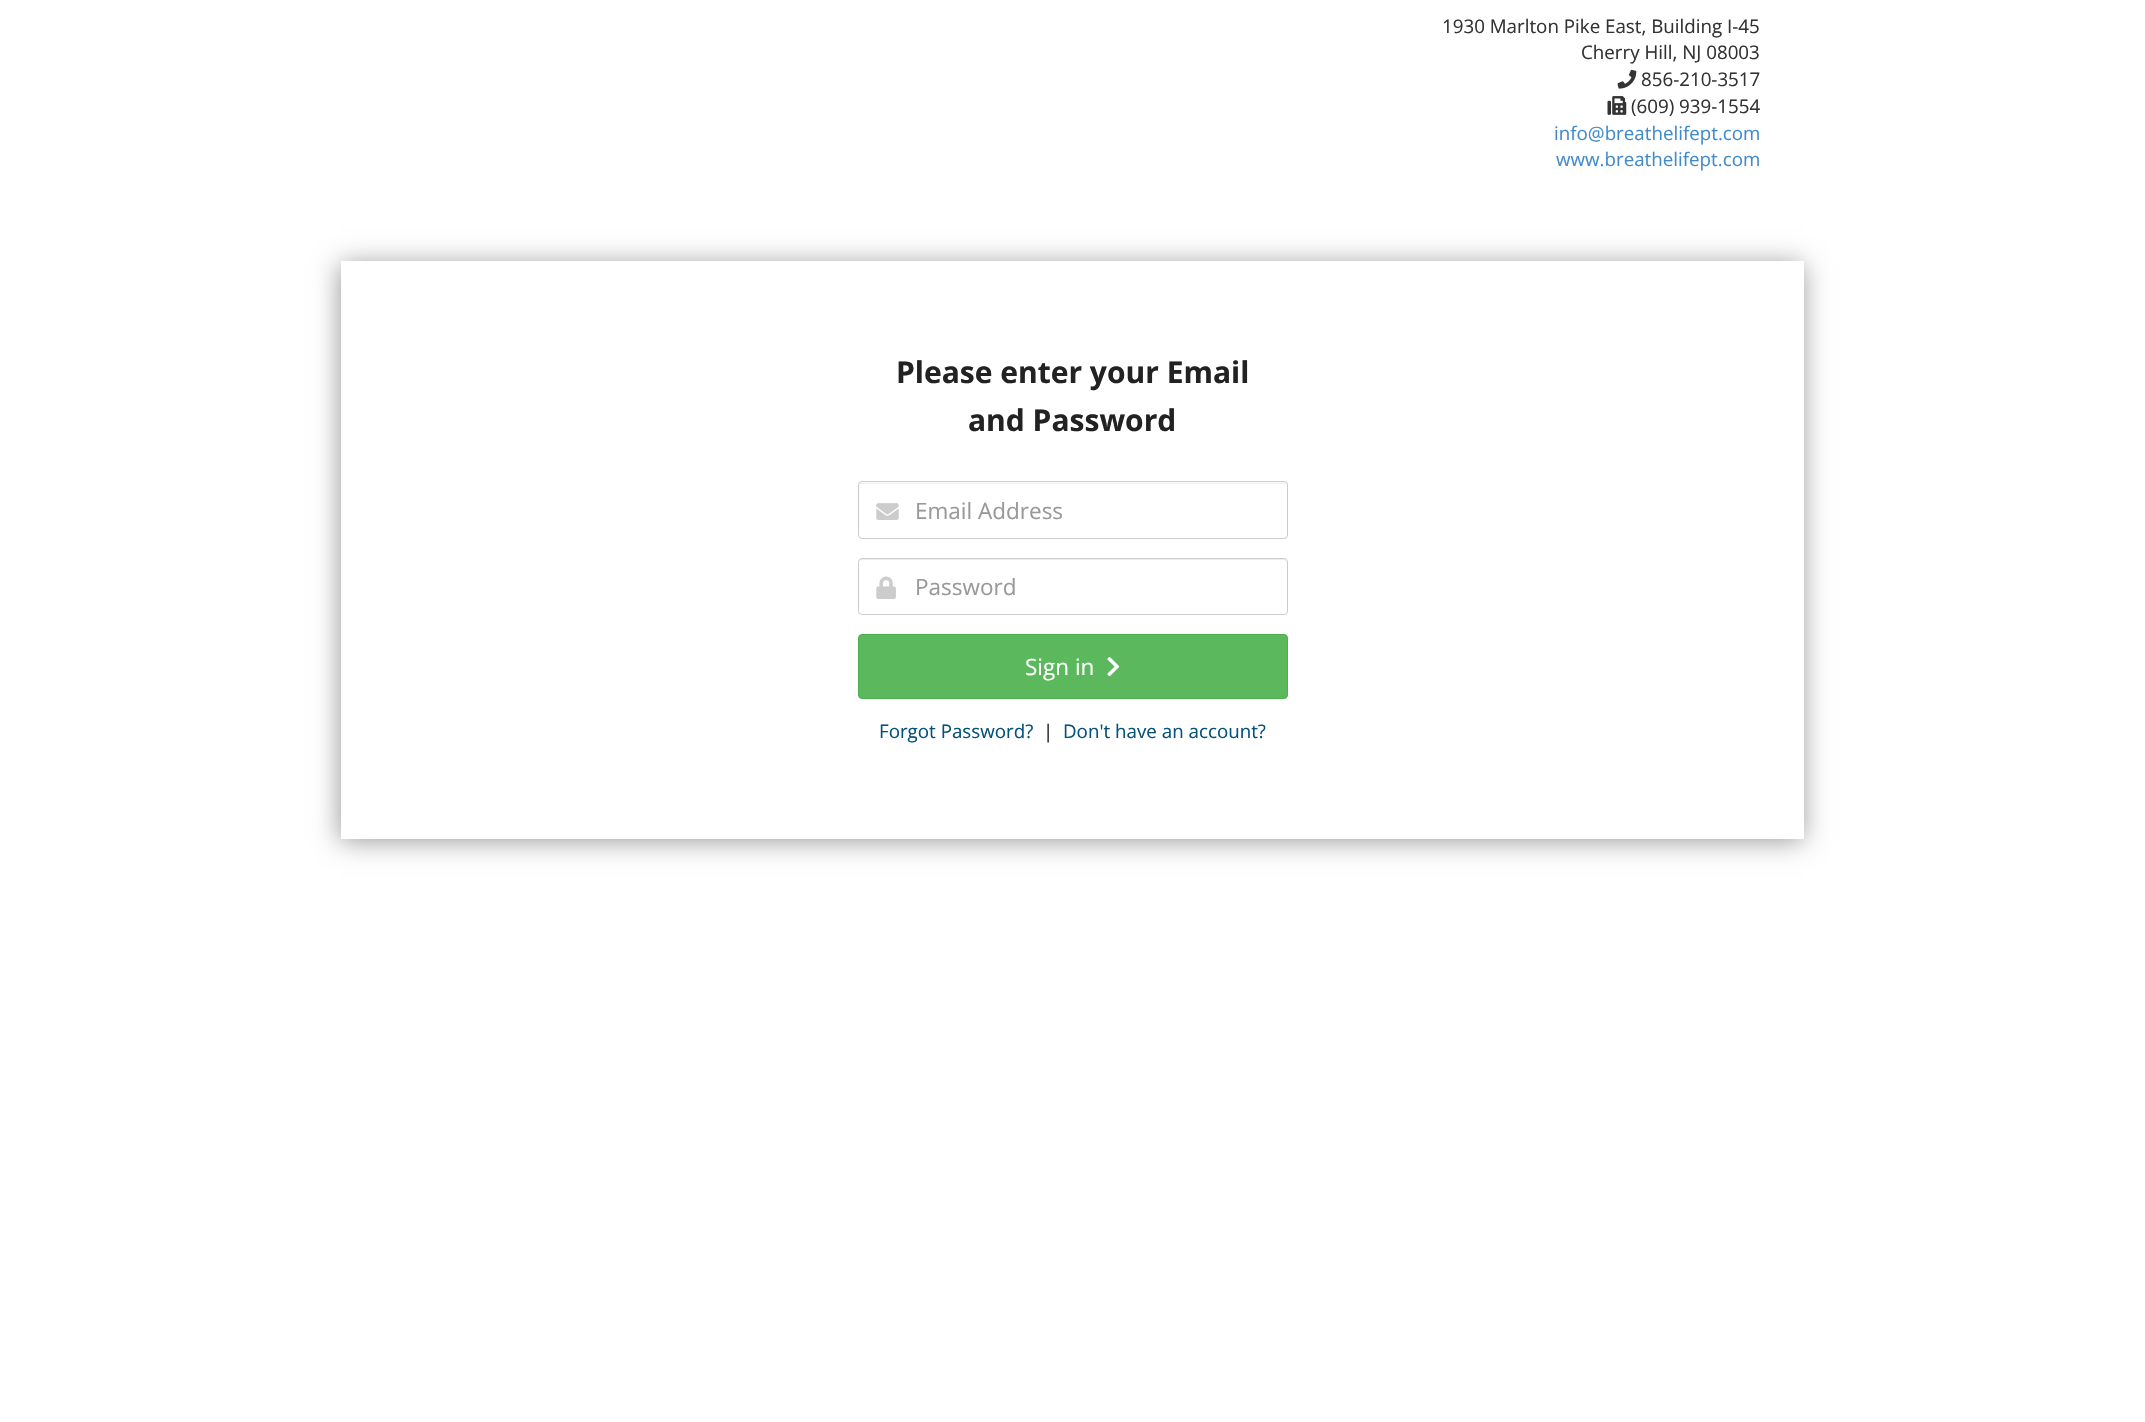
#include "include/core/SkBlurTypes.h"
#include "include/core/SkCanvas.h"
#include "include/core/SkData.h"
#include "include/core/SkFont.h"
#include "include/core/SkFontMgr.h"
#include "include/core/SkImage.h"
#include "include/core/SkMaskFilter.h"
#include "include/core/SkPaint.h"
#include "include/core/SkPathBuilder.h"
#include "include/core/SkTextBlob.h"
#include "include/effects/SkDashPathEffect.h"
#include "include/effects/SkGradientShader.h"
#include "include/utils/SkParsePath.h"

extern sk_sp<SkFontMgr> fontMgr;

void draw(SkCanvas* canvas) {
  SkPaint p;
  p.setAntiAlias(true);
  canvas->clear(SK_ColorWHITE);
  canvas->drawImageRect(SkImages::DeferredFromEncodedData(SkData::MakeFromFileName("images/1.png")), SkRect::MakeLTRB(1617, 69, 1637, 89), SkSamplingOptions());
  canvas->drawImageRect(SkImages::DeferredFromEncodedData(SkData::MakeFromFileName("images/2.png")), SkRect::MakeLTRB(1607, 96, 1627, 115), SkSamplingOptions());
  p.setColor(SkColorSetARGB(102, 0, 0, 0));
  p.setMaskFilter(SkMaskFilter::MakeBlur(kNormal_SkBlurStyle, 12.5f));
  canvas->drawRect(SkRect::MakeLTRB(340, 264, 1803, 841), p);
  p.setMaskFilter(nullptr);
  p.setColor(SK_ColorWHITE);
  canvas->drawRect(SkRect::MakeLTRB(341, 261, 1804, 839), p);
  p.setColor(SkColorSetRGB(236, 236, 236));
  canvas->drawPath(SkPathBuilder().moveTo(861, 484).lineTo(1284, 484).cubicTo(1285, 484, 1286, 485, 1286, 486).cubicTo(1286, 484, 1285, 483, 1284, 483).lineTo(862, 483).lineTo(860, 483).lineTo(859, 485).lineTo(859, 486).cubicTo(859, 485, 860, 484, 861, 484).close().detach(), p);
  p.setStyle(SkPaint::kStroke_Style);
  p.setStrokeWidth(1);
  p.setColor(SkColorSetRGB(204, 204, 204));
  canvas->drawRoundRect(SkRect::MakeLTRB(858.5f, 481.5f, 1287.5f, 538.5f), 3.5f, 3.5f, p);
  canvas->drawImageRect(SkImages::DeferredFromEncodedData(SkData::MakeFromFileName("images/3.png")), SkRect::MakeLTRB(876, 503, 899, 520), SkSamplingOptions());
  p.setStyle(SkPaint::kFill_Style);
  p.setColor(SkColorSetRGB(236, 236, 236));
  canvas->drawPath(SkPathBuilder().moveTo(861, 560).lineTo(1284, 560).cubicTo(1285, 560, 1286, 561, 1286, 562).cubicTo(1286, 560, 1285, 559, 1284, 559).lineTo(862, 559).lineTo(860, 559).lineTo(859, 561).lineTo(859, 562).cubicTo(859, 561, 860, 560, 861, 560).close().detach(), p);
  p.setStyle(SkPaint::kStroke_Style);
  p.setColor(SkColorSetRGB(204, 204, 204));
  canvas->drawRoundRect(SkRect::MakeLTRB(858.5f, 558.5f, 1287.5f, 614.5f), 3.5f, 3.5f, p);
  canvas->drawImageRect(SkImages::DeferredFromEncodedData(SkData::MakeFromFileName("images/4.png")), SkRect::MakeLTRB(876, 576, 896, 599), SkSamplingOptions());
  p.setStyle(SkPaint::kFill_Style);
  p.setColor(SkColorSetRGB(92, 184, 92));
  canvas->drawRoundRect(SkRect::MakeLTRB(858.5f, 634.5f, 1287.5f, 698.5f), 3.5f, 3.5f, p);
  p.setStyle(SkPaint::kStroke_Style);
  p.setColor(SkColorSetRGB(76, 174, 76));
  canvas->drawRoundRect(SkRect::MakeLTRB(858.5f, 634.5f, 1287.5f, 698.5f), 3.5f, 3.5f, p);
  canvas->drawImageRect(SkImages::DeferredFromEncodedData(SkData::MakeFromFileName("images/5.png")), SkRect::MakeLTRB(1107, 657, 1120, 677), SkSamplingOptions());
  SkFont font1(fontMgr->matchFamilyStyle("Open Sans", SkFontStyle::Normal()), 18.75f);
  font1.setSubpixel(true);
  p.setStyle(SkPaint::kFill_Style);
  p.setColor(SkColorSetRGB(51, 51, 51));
  canvas->drawString("1930 Marlton Pike East, Building I-45", 1442, 33, font1, p);
  canvas->drawString("Cherry Hill, NJ 08003", 1581, 59, font1, p);
  canvas->drawString("856-210-3517", 1641, 86, font1, p);
  canvas->drawString("(609) 939-1554", 1631, 113, font1, p);
  p.setColor(SkColorSetRGB(66, 139, 202));
  canvas->drawString("info@breathelifept.com", 1554, 140, font1, p);
  canvas->drawString("www.breathelifept.com", 1556, 166, font1, p);
  SkFont font2(fontMgr->matchFamilyStyle("Open Sans", SkFontStyle::Bold()), 30);
  font2.setSubpixel(true);
  p.setColor(SkColorSetRGB(34, 34, 34));
  canvas->drawString("Please enter your Email", 896, 383, font2, p);
  canvas->drawString("and Password", 968, 431, font2, p);
  SkFont font3(fontMgr->matchFamilyStyle("Open Sans", SkFontStyle::Normal()), 22.5f);
  font3.setSubpixel(true);
  p.setColor(SkColorSetRGB(153, 153, 153));
  canvas->drawString("Email Address", 915, 519, font3, p);
  canvas->drawString("Password", 915, 595, font3, p);
  p.setColor(SK_ColorWHITE);
  canvas->drawString("Sign in", 1025, 675, font3, p);
  p.setColor(SkColorSetRGB(3, 82, 122));
  canvas->drawString("Forgot Password?", 879, 738, font1, p);
  p.setColor(SkColorSetRGB(34, 34, 34));
  canvas->drawString("|", 1043, 738, font1, p);
  p.setColor(SkColorSetRGB(3, 82, 122));
  canvas->drawString("Don't have an account?", 1063, 738, font1, p);
}
